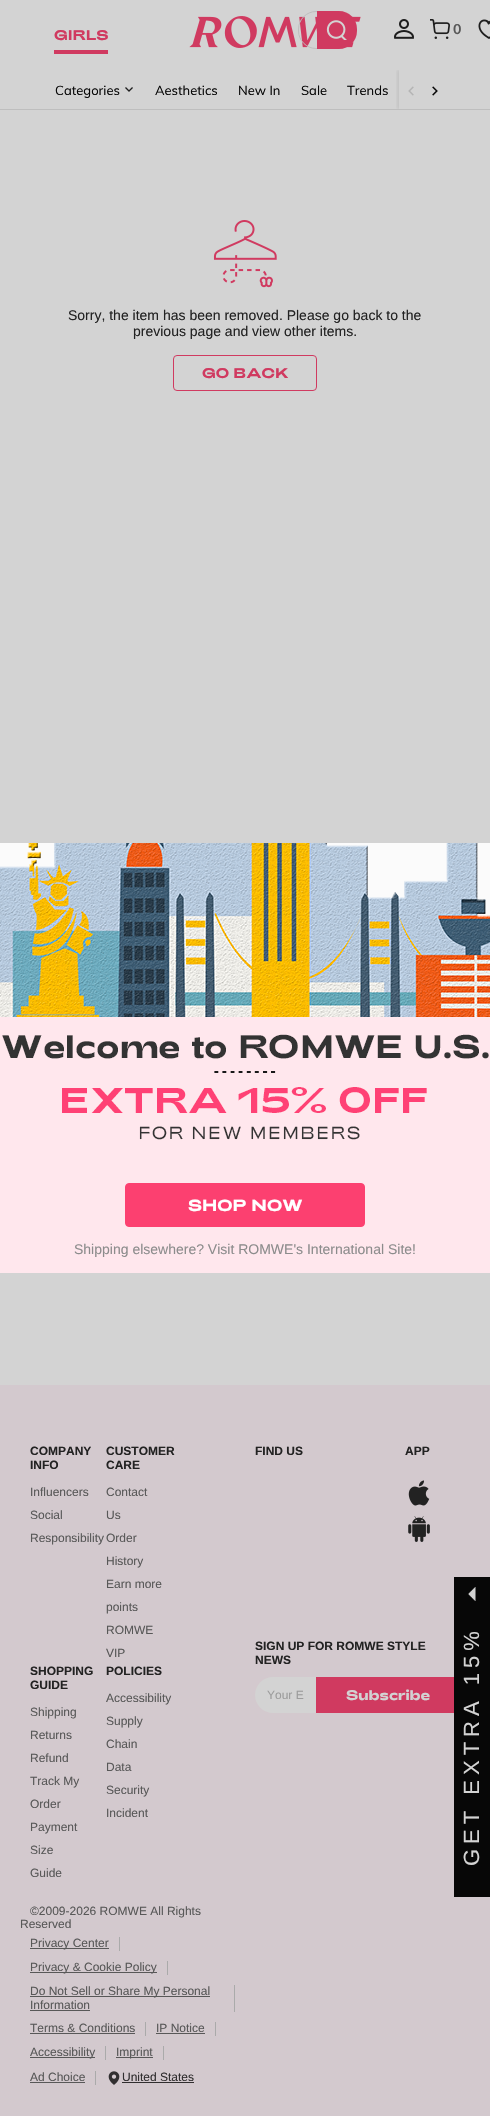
#include "include/core/SkBlurTypes.h"
#include "include/core/SkCanvas.h"
#include "include/core/SkData.h"
#include "include/core/SkFont.h"
#include "include/core/SkFontMgr.h"
#include "include/core/SkImage.h"
#include "include/core/SkMaskFilter.h"
#include "include/core/SkPaint.h"
#include "include/core/SkPathBuilder.h"
#include "include/core/SkTextBlob.h"
#include "include/effects/SkDashPathEffect.h"
#include "include/effects/SkGradientShader.h"
#include "include/utils/SkParsePath.h"

extern sk_sp<SkFontMgr> fontMgr;

void draw(SkCanvas* canvas) {
  SkPaint p;
  p.setAntiAlias(true);
  auto spacedText = [&](const char* s, float x, float y, const SkFont& font, const SkPaint& ink, float letter, float word) {
    std::vector<SkGlyphID> glyphs(font.countText(s, strlen(s), SkTextEncoding::kUTF8));
    std::vector<float> xs(glyphs.size());
    font.textToGlyphs(s, strlen(s), SkTextEncoding::kUTF8, glyphs);
    font.getXPos(glyphs, xs, x);
    float extra = 0;
    for (size_t i = 0; i < glyphs.size(); i++) {
      xs[i] += extra;
      extra += letter + word * (glyphs[i] == font.unicharToGlyph(' '));
    }
    canvas->drawTextBlob(SkTextBlob::MakeFromPosHGlyphs(glyphs, xs, y, font), 0, 0, ink);
  };
  canvas->clear(SkColorSetRGB(211, 211, 211));
  canvas->drawImageRect(SkImages::DeferredFromEncodedData(SkData::MakeFromFileName("images/2.png")), SkRect::MakeLTRB(189, 16, 361, 48), SkSamplingOptions());
  p.setStyle(SkPaint::kStroke_Style);
  p.setStrokeWidth(1);
  p.setColor(SkColorSetRGB(190, 190, 190));
  canvas->drawPath(SkPathBuilder().moveTo(316, 11.5f).lineTo(321.5f, 11.5f).lineTo(321.5f, 48.5f).lineTo(316, 48.5f).cubicTo(306.5f, 48.5f, 298.5f, 40.5f, 298.5f, 31).lineTo(298.5f, 29).cubicTo(298.5f, 19.5f, 306.5f, 11.5f, 316, 11.5f).close().detach(), p);
  p.setStyle(SkPaint::kFill_Style);
  p.setColor(SkColorSetRGB(208, 58, 96));
  canvas->drawPath(SkPathBuilder().moveTo(317, 11).lineTo(339, 11).cubicTo(349, 11, 357, 19, 357, 29).lineTo(357, 31).cubicTo(357, 41, 349, 49, 339, 49).lineTo(317, 49).close().detach(), p);
  canvas->drawImageRect(SkImages::DeferredFromEncodedData(SkData::MakeFromFileName("images/1.png")), SkRect::MakeLTRB(326, 20, 347, 40), SkSamplingOptions());
  canvas->drawRect(SkRect::MakeLTRB(54, 50, 108, 54), p);
  canvas->drawImageRect(SkImages::DeferredFromEncodedData(SkData::MakeFromFileName("images/3.png")), SkRect::MakeLTRB(394, 19, 414, 39), SkSamplingOptions());
  canvas->drawImageRect(SkImages::DeferredFromEncodedData(SkData::MakeFromFileName("images/4.png")), SkRect::MakeLTRB(430, 19, 450, 39), SkSamplingOptions());
  canvas->drawImageRect(SkImages::DeferredFromEncodedData(SkData::MakeFromFileName("images/5.png")), SkRect::MakeLTRB(478, 19, 490, 39), SkSamplingOptions());
  p.setColor(SkColorSetRGB(190, 190, 190));
  canvas->drawRect(SkRect::MakeLTRB(0, 109, 490, 110), p);
  canvas->drawImageRect(SkImages::DeferredFromEncodedData(SkData::MakeFromFileName("images/6.png")), SkRect::MakeLTRB(125, 87, 133, 92), SkSamplingOptions());
  canvas->save();
  canvas->clipRect(SkRect::MakeLTRB(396, 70, 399, 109));
  p.setColor(SkColorSetARGB(20, 7, 7, 7));
  p.setMaskFilter(SkMaskFilter::MakeBlur(kNormal_SkBlurStyle, 1.5f));
  canvas->drawRect(SkRect::MakeLTRB(397, 70, 447, 109), p);
  p.setMaskFilter(nullptr);
  canvas->restore();
  canvas->drawImageRect(SkImages::DeferredFromEncodedData(SkData::MakeFromFileName("images/7.png")), SkRect::MakeLTRB(408, 86, 414, 96), SkSamplingOptions());
  canvas->drawImageRect(SkImages::DeferredFromEncodedData(SkData::MakeFromFileName("images/8.png")), SkRect::MakeLTRB(432, 86, 438, 96), SkSamplingOptions());
  canvas->drawImageRect(SkImages::DeferredFromEncodedData(SkData::MakeFromFileName("images/9.png")), SkRect::MakeLTRB(213, 220, 277, 288), SkSamplingOptions());
  p.setStyle(SkPaint::kStroke_Style);
  p.setColor(SkColorSetRGB(208, 58, 96));
  canvas->drawRoundRect(SkRect::MakeLTRB(173.5f, 355.5f, 316.5f, 390.5f), 3.5f, 3.5f, p);
  p.setStyle(SkPaint::kFill_Style);
  p.setColor(SkColorSetRGB(211, 201, 206));
  canvas->drawRect(SkRect::MakeLTRB(0, 1385, 490, 2116), p);
  canvas->drawImageRect(SkImages::DeferredFromEncodedData(SkData::MakeFromFileName("images/10.png")), SkRect::MakeLTRB(408, 1480, 430, 1506), SkSamplingOptions());
  canvas->drawImageRect(SkImages::DeferredFromEncodedData(SkData::MakeFromFileName("images/11.png")), SkRect::MakeLTRB(408, 1516, 430, 1542), SkSamplingOptions());
  p.setColor(SkColorSetRGB(211, 211, 211));
  canvas->drawPath(SkPathBuilder().moveTo(273, 1677).lineTo(316, 1677).lineTo(316, 1713).lineTo(273, 1713).cubicTo(263, 1713, 255, 1705, 255, 1695).cubicTo(255, 1685, 263, 1677, 273, 1677).close().detach(), p);
  p.setColor(SkColorSetRGB(208, 58, 96));
  canvas->drawRect(SkRect::MakeLTRB(316, 1677, 454, 1713), p);
  p.setColor(SkColorSetRGB(170, 170, 170));
  canvas->drawRect(SkRect::MakeLTRB(119, 1937, 120, 1951), p);
  p.setColor(SkColorSetRGB(88, 88, 88));
  canvas->drawRect(SkRect::MakeLTRB(30, 1948, 109, 1949), p);
  p.setColor(SkColorSetRGB(170, 170, 170));
  canvas->drawRect(SkRect::MakeLTRB(167, 1961, 168, 1975), p);
  p.setColor(SkColorSetRGB(88, 88, 88));
  canvas->drawRect(SkRect::MakeLTRB(30, 1972, 157, 1973), p);
  p.setColor(SkColorSetRGB(170, 170, 170));
  canvas->drawRect(SkRect::MakeLTRB(234, 1985, 235, 2012), p);
  p.setColor(SkColorSetRGB(88, 88, 88));
  canvas->drawRect(SkRect::MakeLTRB(30, 1996, 210, 1997), p);
  canvas->drawRect(SkRect::MakeLTRB(30, 2010, 90, 2011), p);
  p.setColor(SkColorSetRGB(170, 170, 170));
  canvas->drawRect(SkRect::MakeLTRB(145, 2022, 146, 2036), p);
  p.setColor(SkColorSetRGB(88, 88, 88));
  canvas->drawRect(SkRect::MakeLTRB(30, 2033, 135, 2034), p);
  p.setColor(SkColorSetRGB(170, 170, 170));
  canvas->drawRect(SkRect::MakeLTRB(215, 2022, 216, 2036), p);
  p.setColor(SkColorSetRGB(88, 88, 88));
  canvas->drawRect(SkRect::MakeLTRB(156, 2033, 205, 2034), p);
  p.setColor(SkColorSetRGB(170, 170, 170));
  canvas->drawRect(SkRect::MakeLTRB(105, 2046, 106, 2060), p);
  p.setColor(SkColorSetRGB(88, 88, 88));
  canvas->drawRect(SkRect::MakeLTRB(30, 2057, 95, 2058), p);
  p.setColor(SkColorSetRGB(170, 170, 170));
  canvas->drawRect(SkRect::MakeLTRB(163, 2046, 164, 2060), p);
  p.setColor(SkColorSetRGB(88, 88, 88));
  canvas->drawRect(SkRect::MakeLTRB(116, 2057, 153, 2058), p);
  p.setColor(SkColorSetRGB(170, 170, 170));
  canvas->drawRect(SkRect::MakeLTRB(95, 2071, 96, 2085), p);
  p.setColor(SkColorSetRGB(88, 88, 88));
  canvas->drawRect(SkRect::MakeLTRB(30, 2082, 85, 2083), p);
  canvas->drawImageRect(SkImages::DeferredFromEncodedData(SkData::MakeFromFileName("images/12.png")), SkRect::MakeLTRB(108, 2071, 120, 2085), SkSamplingOptions());
  p.setColor(SkColorSetRGB(48, 46, 47));
  canvas->drawRect(SkRect::MakeLTRB(122, 2082, 194, 2083), p);
  canvas->drawImageRect(SkImages::DeferredFromEncodedData(SkData::MakeFromFileName("images/13.png")), SkRect::MakeLTRB(0, 843, 490, 1273), SkSamplingOptions());
  p.setColor(SkColorSetRGB(252, 64, 112));
  canvas->drawRoundRect(SkRect::MakeLTRB(125.5f, 1183.5f, 364.5f, 1226.5f), 3.5f, 3.5f, p);
  p.setStyle(SkPaint::kStroke_Style);
  canvas->drawRoundRect(SkRect::MakeLTRB(125.5f, 1183.5f, 364.5f, 1226.5f), 3.5f, 3.5f, p);
  p.setStyle(SkPaint::kFill_Style);
  p.setColor(SkColorSetRGB(7, 7, 7));
  canvas->drawRect(SkRect::MakeLTRB(454, 1577, 490, 1897), p);
  canvas->drawImageRect(SkImages::DeferredFromEncodedData(SkData::MakeFromFileName("images/14.png")), SkRect::MakeLTRB(468, 1587, 476, 1601), SkSamplingOptions());
  SkFont font1(fontMgr->matchFamilyStyle("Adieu", SkFontStyle::Bold()), 14);
  font1.setSubpixel(true);
  p.setColor(SkColorSetRGB(208, 58, 96));
  canvas->drawString("GIRLS", 54, 40, font1, p);
  SkFont font2(fontMgr->matchFamilyStyle("Muli", SkFontStyle::Bold()), 14);
  font2.setSubpixel(true);
  p.setColor(SkColorSetRGB(88, 88, 88));
  canvas->drawString("0", 453, 34, font2, p);
  SkFont font3(fontMgr->matchFamilyStyle("Muli", SkFontStyle::Normal()), 13);
  font3.setSubpixel(true);
  p.setColor(SkColorSetRGB(7, 7, 7));
  canvas->drawString("Categories", 55, 95, font3, p);
  canvas->drawString("Aesthetics", 155, 95, font3, p);
  canvas->drawString("New In", 238, 95, font3, p);
  canvas->drawString("Sale", 301, 95, font3, p);
  canvas->drawString("Trends", 347, 95, font3, p);
  SkFont font4(fontMgr->matchFamilyStyle("Liberation Sans", SkFontStyle::Normal()), 14);
  font4.setSubpixel(true);
  p.setColor(SkColorSetRGB(34, 34, 34));
  canvas->drawString("Sorry, the item has been removed. Please go back to the", 68, 320, font4, p);
  canvas->drawString("previous page and view other items.", 133, 336, font4, p);
  p.setColor(SkColorSetRGB(208, 58, 96));
  canvas->drawString("GO BACK", 202, 378, font1, p);
  SkFont font5(fontMgr->matchFamilyStyle("Liberation Sans", SkFontStyle::Bold()), 12);
  font5.setSubpixel(true);
  p.setColor(SkColorSetRGB(34, 34, 34));
  canvas->drawString("COMPANY", 30, 1455, font5, p);
  canvas->drawString("INFO", 30, 1469, font5, p);
  SkFont font6(fontMgr->matchFamilyStyle("Liberation Sans", SkFontStyle::Normal()), 12);
  font6.setSubpixel(true);
  p.setColor(SkColorSetRGB(88, 88, 88));
  canvas->drawString("Influencers", 30, 1496, font6, p);
  canvas->drawString("Social", 30, 1519, font6, p);
  canvas->drawString("Responsibility", 30, 1542, font6, p);
  p.setColor(SkColorSetRGB(34, 34, 34));
  canvas->drawString("CUSTOMER", 106, 1455, font5, p);
  canvas->drawString("CARE", 106, 1469, font5, p);
  p.setColor(SkColorSetRGB(88, 88, 88));
  canvas->drawString("Contact", 106, 1496, font6, p);
  canvas->drawString("Us", 106, 1519, font6, p);
  canvas->drawString("Order", 106, 1542, font6, p);
  canvas->drawString("History", 106, 1565, font6, p);
  canvas->drawString("Earn more", 106, 1588, font6, p);
  canvas->drawString("points", 106, 1611, font6, p);
  canvas->drawString("ROMWE", 106, 1634, font6, p);
  canvas->drawString("VIP", 106, 1657, font6, p);
  p.setColor(SkColorSetRGB(34, 34, 34));
  canvas->drawString("SHOPPING", 30, 1675, font5, p);
  canvas->drawString("GUIDE", 30, 1689, font5, p);
  p.setColor(SkColorSetRGB(88, 88, 88));
  canvas->drawString("Shipping", 30, 1716, font6, p);
  canvas->drawString("Returns", 30, 1739, font6, p);
  canvas->drawString("Refund", 30, 1762, font6, p);
  canvas->drawString("Track My", 30, 1785, font6, p);
  canvas->drawString("Order", 30, 1808, font6, p);
  canvas->drawString("Payment", 30, 1831, font6, p);
  canvas->drawString("Size", 30, 1854, font6, p);
  canvas->drawString("Guide", 30, 1877, font6, p);
  p.setColor(SkColorSetRGB(34, 34, 34));
  canvas->drawString("POLICIES", 106, 1675, font5, p);
  p.setColor(SkColorSetRGB(88, 88, 88));
  canvas->drawString("Accessibility", 106, 1702, font6, p);
  canvas->drawString("Supply", 106, 1725, font6, p);
  canvas->drawString("Chain", 106, 1748, font6, p);
  canvas->drawString("Data", 106, 1771, font6, p);
  canvas->drawString("Security", 106, 1794, font6, p);
  canvas->drawString("Incident", 106, 1817, font6, p);
  p.setColor(SkColorSetRGB(34, 34, 34));
  canvas->drawString("FIND US", 255, 1455, font5, p);
  canvas->drawString("APP", 405, 1455, font5, p);
  canvas->drawString("SIGN UP FOR ROMWE STYLE", 255, 1650, font5, p);
  canvas->drawString("NEWS", 255, 1664, font5, p);
  p.setColor(SkColorSetRGB(156, 156, 156));
  canvas->drawString("Your E", 267, 1699, font6, p);
  p.setColor(SkColorSetRGB(211, 211, 211));
  canvas->drawString("Subscribe", 346, 1700, font1, p);
  p.setColor(SkColorSetRGB(88, 88, 88));
  canvas->drawString("©2009-2026 ROMWE All Rights", 30, 1915, font6, p);
  canvas->drawString("Reserved", 20, 1928, font6, p);
  canvas->drawString("Privacy Center", 30, 1947, font6, p);
  canvas->drawString("Privacy & Cookie Policy", 30, 1971, font6, p);
  canvas->drawString("Do Not Sell or Share My Personal", 30, 1995, font6, p);
  canvas->drawString("Information", 30, 2009, font6, p);
  canvas->drawString("Terms & Conditions", 30, 2032, font6, p);
  canvas->drawString("IP Notice", 156, 2032, font6, p);
  canvas->drawString("Accessibility", 30, 2056, font6, p);
  canvas->drawString("Imprint", 116, 2056, font6, p);
  canvas->drawString("Ad Choice", 30, 2081, font6, p);
  p.setColor(SkColorSetRGB(48, 46, 47));
  canvas->drawString("United States", 122, 2081, font6, p);
  SkFont font7(fontMgr->matchFamilyStyle("Adieu", SkFontStyle::Bold()), 16);
  font7.setSubpixel(true);
  p.setColor(SK_ColorWHITE);
  canvas->drawString("SHOP NOW", 188, 1211, font7, p);
  p.setColor(SkColorSetRGB(140, 140, 140));
  canvas->drawString("Shipping elsewhere? Visit ROMWE's International Site!", 74, 1254, font4, p);
  SkFont font8(fontMgr->matchFamilyStyle("Liberation Sans", SkFontStyle::Normal()), 22);
  font8.setSubpixel(true);
  p.setColor(SkColorSetRGB(211, 211, 211));
  canvas->save();
  canvas->rotate(-90, 479, 1866);
  spacedText("GET EXTRA 15%", 479, 1866, font8, p, 5, 0);
  canvas->restore();
}
